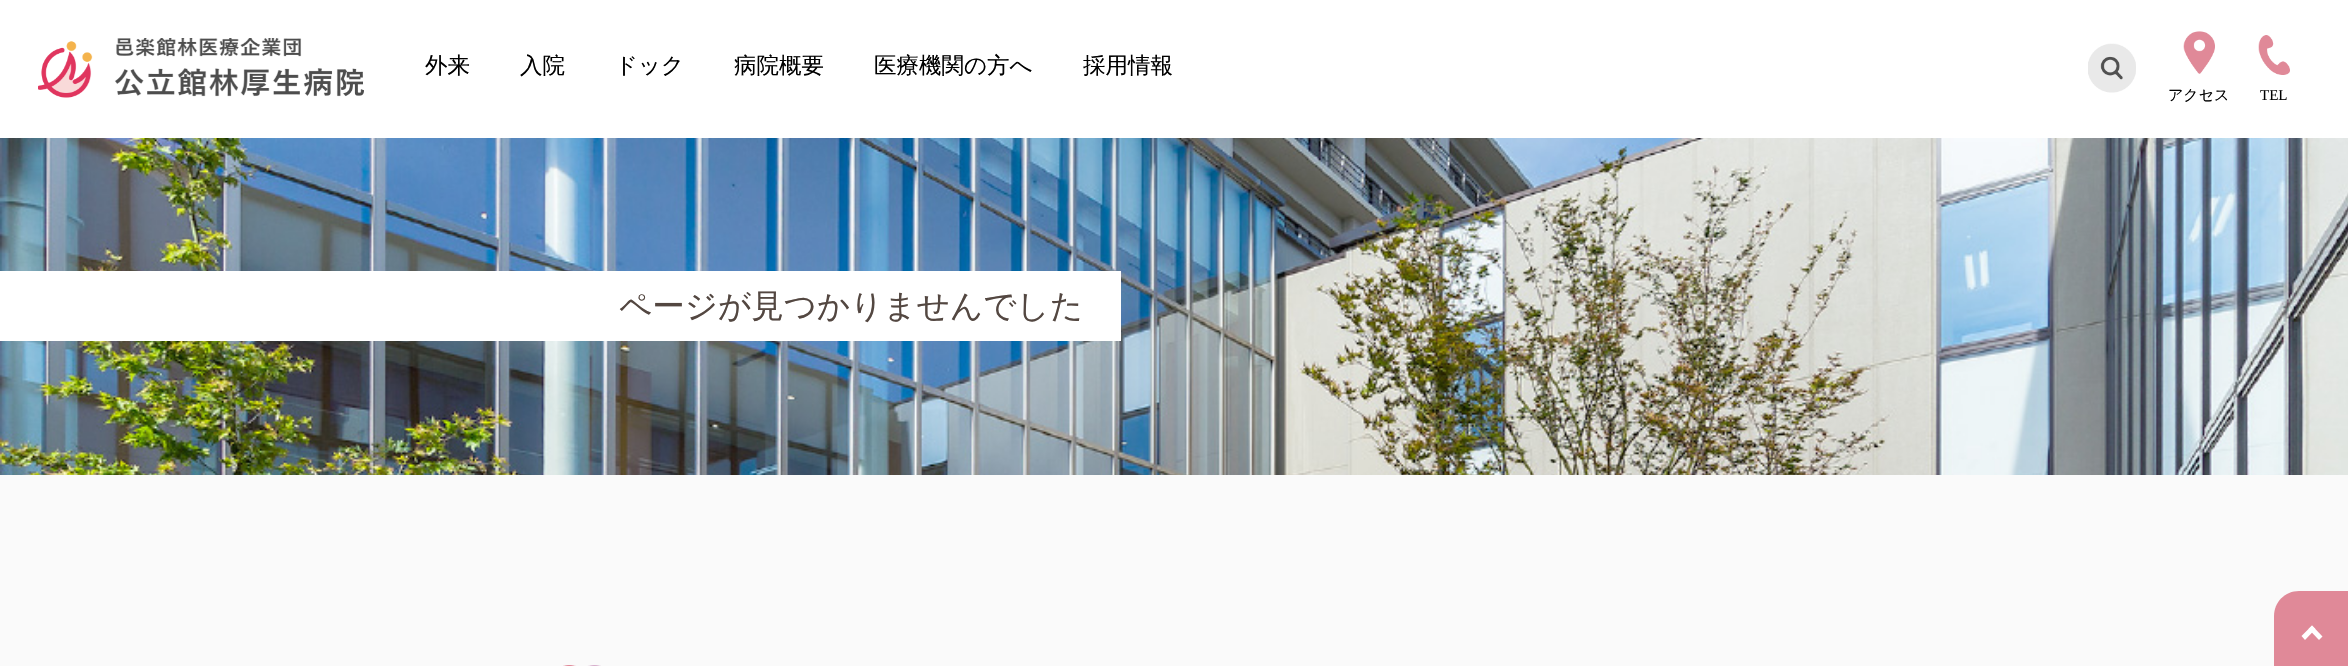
#include "include/core/SkBlurTypes.h"
#include "include/core/SkCanvas.h"
#include "include/core/SkData.h"
#include "include/core/SkFont.h"
#include "include/core/SkFontMgr.h"
#include "include/core/SkImage.h"
#include "include/core/SkMaskFilter.h"
#include "include/core/SkPaint.h"
#include "include/core/SkPathBuilder.h"
#include "include/core/SkTextBlob.h"
#include "include/effects/SkDashPathEffect.h"
#include "include/effects/SkGradientShader.h"
#include "include/utils/SkParsePath.h"

extern sk_sp<SkFontMgr> fontMgr;

void draw(SkCanvas* canvas) {
  SkPaint p;
  p.setAntiAlias(true);
  canvas->clear(SK_ColorWHITE);
  canvas->drawImageRect(SkImages::DeferredFromEncodedData(SkData::MakeFromFileName("images/1.png")), SkRect::MakeLTRB(38, 38, 364, 98), SkSamplingOptions());
  canvas->drawImageRect(SkImages::DeferredFromEncodedData(SkData::MakeFromFileName("images/2.png")), SkRect::MakeLTRB(2088, 43, 2136, 93), SkSamplingOptions());
  canvas->drawImageRect(SkImages::DeferredFromEncodedData(SkData::MakeFromFileName("images/3.png")), SkRect::MakeLTRB(2183, 31, 2215, 74), SkSamplingOptions());
  canvas->drawImageRect(SkImages::DeferredFromEncodedData(SkData::MakeFromFileName("images/4.png")), SkRect::MakeLTRB(2258, 35, 2290, 75), SkSamplingOptions());
  canvas->drawImageRect(SkImages::DeferredFromEncodedData(SkData::MakeFromFileName("images/5.png")), SkRect::MakeLTRB(0, 138, 2348, 475), SkSamplingOptions());
  p.setColor(SK_ColorWHITE);
  canvas->drawRect(SkRect::MakeLTRB(0, 271, 1121, 341), p);
  p.setColor(SkColorSetRGB(250, 250, 250));
  canvas->drawRect(SkRect::MakeLTRB(0, 475, 2348, 666), p);
  canvas->drawImageRect(SkImages::DeferredFromEncodedData(SkData::MakeFromFileName("images/6.png")), SkRect::MakeLTRB(563, 665, 601, 666), SkSamplingOptions());
  p.setColor(SkColorSetRGB(224, 137, 152));
  canvas->drawPath(SkPathBuilder().moveTo(2299, 591).lineTo(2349, 591).lineTo(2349, 666).lineTo(2274, 666).lineTo(2274, 616).cubicTo(2274, 602, 2285, 591, 2299, 591).close().detach(), p);
  p.setColor(SK_ColorWHITE);
  canvas->drawPath(SkPathBuilder().moveTo(2301.5f, 636).lineTo(2312, 625.5f).lineTo(2315.5f, 629).lineTo(2305, 640).close().detach(), p);
  canvas->drawPath(SkPathBuilder().moveTo(2308.5f, 629).lineTo(2312, 625.5f).lineTo(2322.5f, 636.5f).lineTo(2319, 640).close().detach(), p);
  SkFont font1(fontMgr->matchFamilyStyle("WenQuanYi Zen Hei", SkFontStyle(500, SkFontStyle::kNormal_Width, SkFontStyle::kUpright_Slant)), 22.5f);
  font1.setSubpixel(true);
  p.setColor(SK_ColorBLACK);
  canvas->drawString("外来", 425, 73, font1, p);
  canvas->drawString("入院", 520, 73, font1, p);
  canvas->drawString("ドック", 615, 73, font1, p);
  canvas->drawString("病院概要", 734, 73, font1, p);
  canvas->drawString("医療機関の方へ", 874, 73, font1, p);
  canvas->drawString("採用情報", 1083, 73, font1, p);
  SkFont font2(fontMgr->matchFamilyStyle("WenQuanYi Zen Hei", SkFontStyle(500, SkFontStyle::kNormal_Width, SkFontStyle::kUpright_Slant)), 15);
  font2.setSubpixel(true);
  canvas->drawString("アクセス", 2168, 100, font2, p);
  SkFont font3(fontMgr->matchFamilyStyle("Liberation Serif", SkFontStyle::Normal()), 15);
  font3.setSubpixel(true);
  canvas->drawString("TEL", 2260, 100, font3, p);
  SkFont font4(fontMgr->matchFamilyStyle("WenQuanYi Zen Hei", SkFontStyle(500, SkFontStyle::kNormal_Width, SkFontStyle::kUpright_Slant)), 32.5f);
  font4.setSubpixel(true);
  p.setColor(SkColorSetRGB(83, 71, 65));
  canvas->drawString("ページが見つかりませんでした", 619, 317, font4, p);
}
